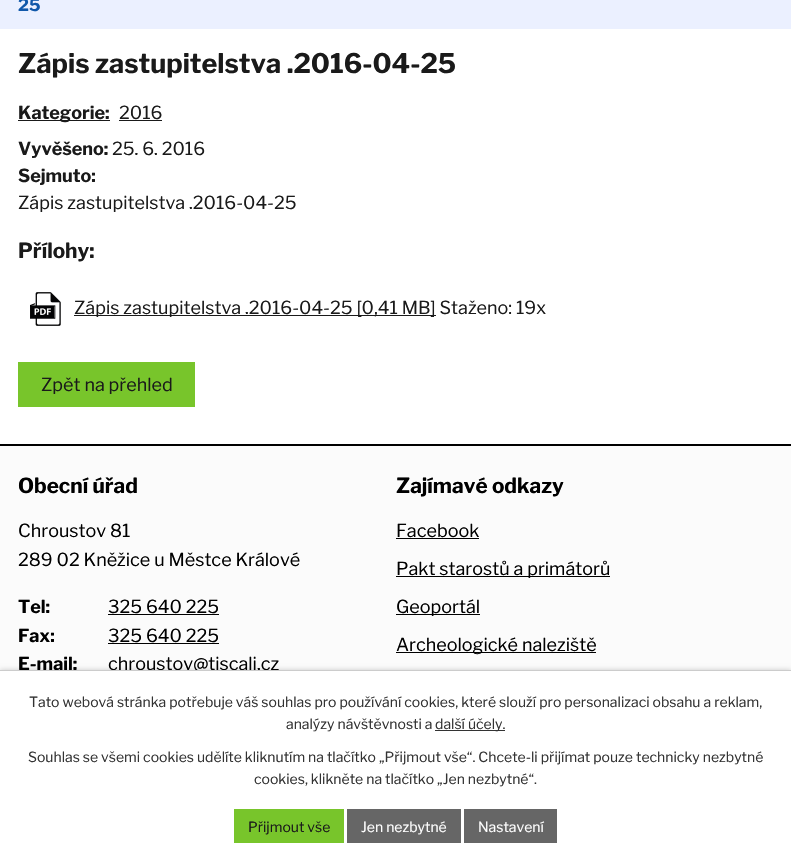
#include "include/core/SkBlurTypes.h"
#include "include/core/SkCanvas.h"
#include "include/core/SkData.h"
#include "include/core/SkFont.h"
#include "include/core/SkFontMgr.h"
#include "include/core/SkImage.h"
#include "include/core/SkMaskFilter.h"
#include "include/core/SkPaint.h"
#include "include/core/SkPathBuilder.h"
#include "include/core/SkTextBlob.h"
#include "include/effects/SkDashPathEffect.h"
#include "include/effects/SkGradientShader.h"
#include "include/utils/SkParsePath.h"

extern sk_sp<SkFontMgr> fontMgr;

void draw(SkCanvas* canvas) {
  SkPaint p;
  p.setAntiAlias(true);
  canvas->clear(SK_ColorWHITE);
  p.setColor(SkColorSetRGB(235, 240, 255));
  canvas->drawRect(SkRect::MakeLTRB(0, 0, 791, 29), p);
  p.setColor(SkColorSetRGB(26, 26, 26));
  canvas->drawRect(SkRect::MakeLTRB(18, 120, 110, 121), p);
  canvas->drawRect(SkRect::MakeLTRB(119, 120, 162, 121), p);
  canvas->drawImageRect(SkImages::DeferredFromEncodedData(SkData::MakeFromFileName("images/1.png")), SkRect::MakeLTRB(30, 292, 61, 326), SkSamplingOptions());
  canvas->drawRect(SkRect::MakeLTRB(74, 315, 436, 316), p);
  p.setColor(SkColorSetRGB(120, 197, 43));
  canvas->drawRect(SkRect::MakeLTRB(18, 362, 195, 407), p);
  p.setColor(SK_ColorBLACK);
  canvas->drawRect(SkRect::MakeLTRB(0, 444, 791, 446), p);
  p.setColor(SkColorSetRGB(251, 251, 251));
  canvas->drawRect(SkRect::MakeLTRB(0, 446, 791, 670), p);
  p.setColor(SK_ColorBLACK);
  canvas->drawRect(SkRect::MakeLTRB(108, 614, 219, 615), p);
  canvas->drawRect(SkRect::MakeLTRB(108, 643, 219, 644), p);
  canvas->drawRect(SkRect::MakeLTRB(396, 538, 479, 539), p);
  canvas->drawRect(SkRect::MakeLTRB(396, 576, 610, 577), p);
  canvas->drawRect(SkRect::MakeLTRB(396, 614, 480, 615), p);
  canvas->drawRect(SkRect::MakeLTRB(396, 652, 596, 653), p);
  p.setColor(SkColorSetARGB(51, 0, 0, 0));
  p.setMaskFilter(SkMaskFilter::MakeBlur(kNormal_SkBlurStyle, 2.5f));
  canvas->drawRect(SkRect::MakeLTRB(0, 670, 791, 862), p);
  p.setMaskFilter(nullptr);
  SkFont font1(fontMgr->matchFamilyStyle("Libre Franklin", SkFontStyle::Bold()), 17);
  font1.setSubpixel(true);
  p.setColor(SkColorSetRGB(16, 88, 170));
  canvas->drawString("25", 18, 11, font1, p);
  SkFont font2(fontMgr->matchFamilyStyle("Libre Franklin", SkFontStyle::Bold()), 27);
  font2.setSubpixel(true);
  p.setColor(SkColorSetRGB(26, 26, 26));
  canvas->drawString("Zápis zastupitelstva .2016-04-25", 18, 73, font2, p);
  SkFont font3(fontMgr->matchFamilyStyle("Libre Franklin", SkFontStyle::Bold()), 18);
  font3.setSubpixel(true);
  canvas->drawString("Kategorie:", 18, 119, font3, p);
  SkFont font4(fontMgr->matchFamilyStyle("Libre Franklin", SkFontStyle::Normal()), 18);
  font4.setSubpixel(true);
  canvas->drawString("2016", 119, 119, font4, p);
  canvas->drawString("Vyvěšeno:", 18, 155, font3, p);
  canvas->drawString("25. 6. 2016", 112, 155, font4, p);
  canvas->drawString("Sejmuto:", 18, 182, font3, p);
  canvas->drawString("Zápis zastupitelstva .2016-04-25", 18, 209, font4, p);
  SkFont font5(fontMgr->matchFamilyStyle("Libre Franklin", SkFontStyle::Bold()), 20.75f);
  font5.setSubpixel(true);
  canvas->drawString("Přílohy:", 18, 258, font5, p);
  canvas->drawString("Zápis zastupitelstva .2016-04-25 [0,41 MB] Staženo: 19x", 74, 314, font4, p);
  canvas->drawString("Zpět na přehled", 41, 391, font4, p);
  p.setColor(SK_ColorBLACK);
  canvas->drawString("Obecní úřad", 18, 493, font5, p);
  canvas->drawString("Chroustov 81", 18, 537, font4, p);
  canvas->drawString("289 02 Kněžice u Městce Králové", 18, 566, font4, p);
  canvas->drawString("Tel:", 18, 613, font3, p);
  canvas->drawString("325 640 225", 108, 613, font4, p);
  canvas->drawString("Fax:", 18, 642, font3, p);
  canvas->drawString("325 640 225", 108, 642, font4, p);
  canvas->drawString("E-mail:", 18, 670, font3, p);
  canvas->drawString("chroustov@tiscali.cz", 108, 670, font4, p);
  canvas->drawString("Zajímavé odkazy", 396, 493, font5, p);
  canvas->drawString("Facebook", 396, 537, font4, p);
  canvas->drawString("Pakt starostů a primátorů", 396, 575, font4, p);
  canvas->drawString("Geoportál", 396, 613, font4, p);
  canvas->drawString("Archeologické naleziště", 396, 651, font4, p);
  p.setColor(SK_ColorWHITE);
  canvas->drawRect(SkRect::MakeLTRB(0, 671, 791, 862), p);
  p.setColor(SkColorSetRGB(204, 204, 204));
  canvas->drawRect(SkRect::MakeLTRB(0, 670, 791, 671), p);
  SkFont font6(fontMgr->matchFamilyStyle("Libre Franklin", SkFontStyle::Normal()), 14);
  font6.setSubpixel(true);
  p.setColor(SkColorSetRGB(51, 51, 51));
  canvas->drawString("Tato webová stránka potřebuje váš souhlas pro používání cookies, které slouží pro personalizaci obsahu a reklam,", 29, 707, font6, p);
  canvas->drawString("analýzy návštěvnosti a", 286, 729, font6, p);
  canvas->drawRect(SkRect::MakeLTRB(435, 730, 505, 731), p);
  canvas->drawString("další účely.", 435, 729, font6, p);
  canvas->drawString("Souhlas se všemi cookies udělíte kliknutím na tlačítko „Přijmout vše“. Chcete-li přijímat pouze technicky nezbytné", 28, 762, font6, p);
  canvas->drawString("cookies, klikněte na tlačítko „Jen nezbytné“.", 254, 784, font6, p);
  p.setColor(SkColorSetRGB(120, 197, 43));
  canvas->drawRect(SkRect::MakeLTRB(234, 809, 344, 843), p);
  p.setColor(SkColorSetRGB(26, 26, 26));
  canvas->drawString("Přijmout vše", 248, 832, font6, p);
  p.setColor(SkColorSetRGB(102, 102, 102));
  canvas->drawRect(SkRect::MakeLTRB(347, 809, 461, 843), p);
  p.setColor(SK_ColorWHITE);
  canvas->drawString("Jen nezbytné", 361, 832, font6, p);
  p.setColor(SkColorSetRGB(102, 102, 102));
  canvas->drawRect(SkRect::MakeLTRB(464, 809, 557, 843), p);
  p.setColor(SK_ColorWHITE);
  canvas->drawString("Nastavení", 478, 832, font6, p);
}
